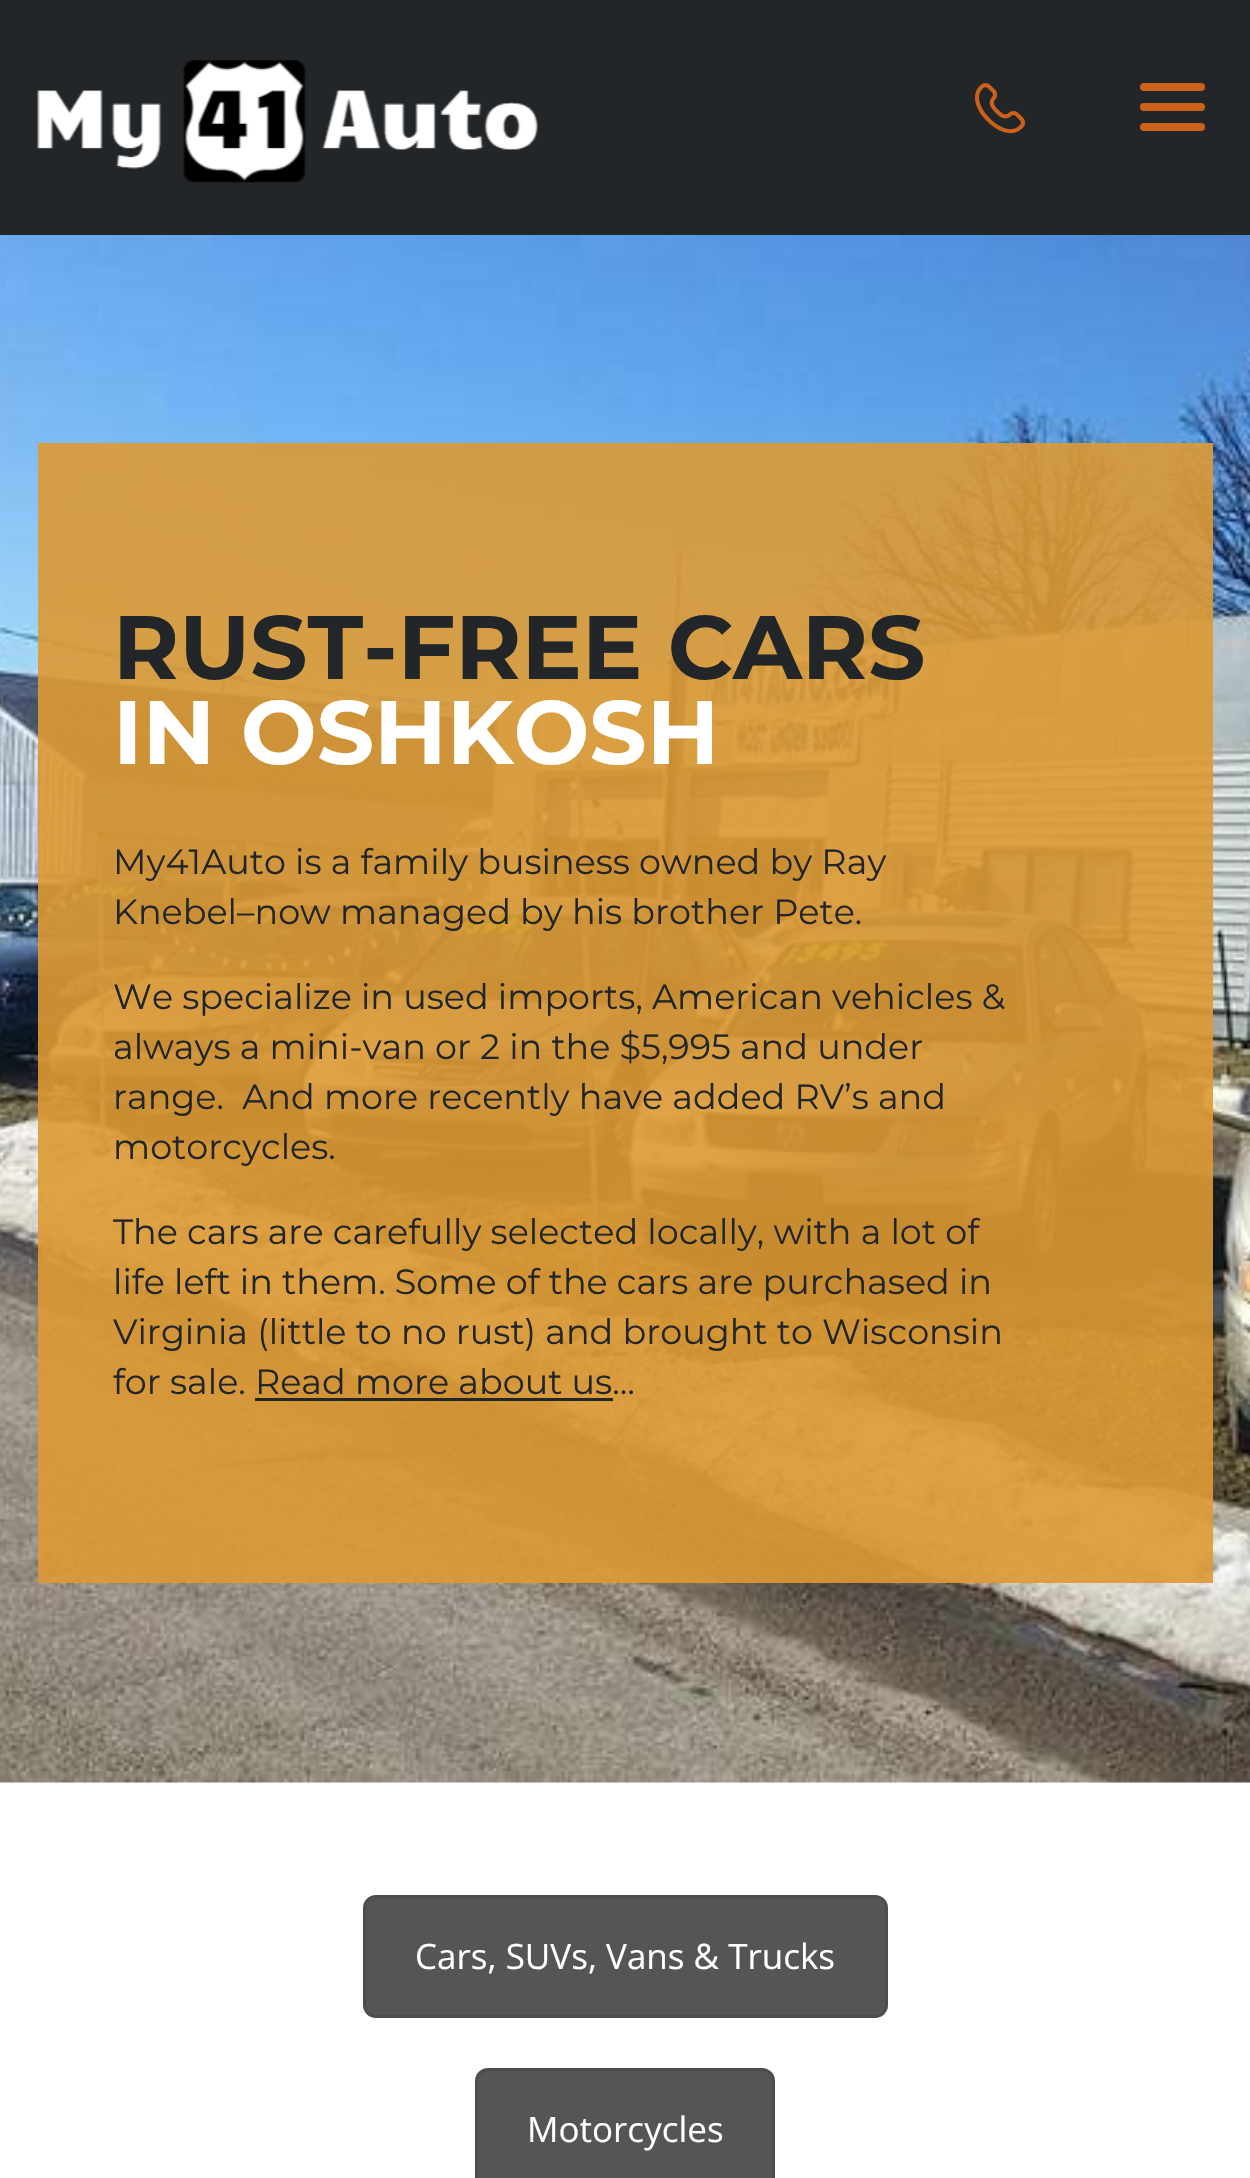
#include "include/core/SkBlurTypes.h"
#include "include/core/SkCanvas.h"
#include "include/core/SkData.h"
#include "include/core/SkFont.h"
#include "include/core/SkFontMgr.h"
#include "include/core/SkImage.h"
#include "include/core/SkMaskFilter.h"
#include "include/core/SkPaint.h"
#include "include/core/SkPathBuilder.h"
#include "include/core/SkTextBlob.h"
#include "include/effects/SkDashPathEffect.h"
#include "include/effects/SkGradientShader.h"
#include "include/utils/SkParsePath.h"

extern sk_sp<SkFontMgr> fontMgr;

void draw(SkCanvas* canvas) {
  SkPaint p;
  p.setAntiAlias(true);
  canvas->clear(SK_ColorWHITE);
  p.setColor(SkColorSetRGB(35, 38, 40));
  canvas->drawRect(SkRect::MakeLTRB(0, 0, 1250, 235), p);
  canvas->drawImageRect(SkImages::DeferredFromEncodedData(SkData::MakeFromFileName("images/1.png")), SkRect::MakeLTRB(37, 60, 538, 183), SkSamplingOptions());
  canvas->drawImageRect(SkImages::DeferredFromEncodedData(SkData::MakeFromFileName("images/2.png")), SkRect::MakeLTRB(975, 83, 1025, 134), SkSamplingOptions());
  p.setColor(SkColorSetRGB(204, 97, 25));
  canvas->drawRoundRect(SkRect::MakeLTRB(1140, 83, 1205, 91), 4, 4, p);
  canvas->drawRoundRect(SkRect::MakeLTRB(1140, 103, 1205, 111), 4, 4, p);
  canvas->drawRoundRect(SkRect::MakeLTRB(1140, 123, 1205, 131), 4, 4, p);
  canvas->drawImageRect(SkImages::DeferredFromEncodedData(SkData::MakeFromFileName("images/3.png")), SkRect::MakeLTRB(0, 235, 1250, 1783), SkSamplingOptions());
  p.setColor(SkColorSetARGB(230, 221, 153, 51));
  canvas->drawRect(SkRect::MakeLTRB(38, 443, 1213, 1583), p);
  p.setColor(SkColorSetRGB(35, 38, 40));
  canvas->drawRect(SkRect::MakeLTRB(255, 1398, 613, 1401), p);
  p.setColor(SkColorSetRGB(85, 85, 85));
  canvas->drawRoundRect(SkRect::MakeLTRB(363, 1895, 888, 2018), 13, 13, p);
  p.setStyle(SkPaint::kStroke_Style);
  p.setStrokeWidth(3);
  p.setColor(SkColorSetARGB(26, 0, 0, 0));
  canvas->drawRoundRect(SkRect::MakeLTRB(364.5f, 1896.5f, 886.5f, 2016.5f), 11.5f, 11.5f, p);
  p.setStyle(SkPaint::kFill_Style);
  p.setColor(SkColorSetRGB(85, 85, 85));
  canvas->drawRoundRect(SkRect::MakeLTRB(475, 2068, 775, 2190), 13, 13, p);
  p.setStyle(SkPaint::kStroke_Style);
  p.setColor(SkColorSetARGB(26, 0, 0, 0));
  canvas->drawRoundRect(SkRect::MakeLTRB(476.5f, 2069.5f, 773.5f, 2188.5f), 11.5f, 11.5f, p);
  SkFont font1(fontMgr->matchFamilyStyle("Montserrat", SkFontStyle::Bold()), 90);
  font1.setSubpixel(true);
  p.setStyle(SkPaint::kFill_Style);
  p.setColor(SkColorSetRGB(35, 38, 40));
  canvas->drawString("RUST-FREE CARS", 113, 679, font1, p);
  p.setColor(SK_ColorWHITE);
  canvas->drawString("IN OSHKOSH", 113, 764, font1, p);
  SkFont font2(fontMgr->matchFamilyStyle("Montserrat", SkFontStyle::Normal()), 35);
  font2.setSubpixel(true);
  p.setColor(SkColorSetRGB(35, 38, 40));
  canvas->drawString("My41Auto is a family business owned by Ray", 113, 874, font2, p);
  canvas->drawString("Knebel–now managed by his brother Pete.", 113, 924, font2, p);
  canvas->drawString("We specialize in used imports, American vehicles &", 113, 1009, font2, p);
  canvas->drawString("always a mini-van or 2 in the $5,995 and under", 113, 1059, font2, p);
  canvas->drawString("range.  And more recently have added RV’s and", 113, 1109, font2, p);
  canvas->drawString("motorcycles.", 113, 1159, font2, p);
  canvas->save();
  canvas->clipRect(SkRect::MakeLTRB(113, 605, 1013, 1443));
  canvas->drawString("The cars are carefully selected locally, with a lot of", 113, 1244, font2, p);
  canvas->restore();
  canvas->drawString("life left in them. Some of the cars are purchased in", 113, 1294, font2, p);
  canvas->drawString("Virginia (little to no rust) and brought to Wisconsin", 113, 1344, font2, p);
  canvas->drawString("for sale. Read more about us…", 113, 1394, font2, p);
  SkFont font3(fontMgr->matchFamilyStyle("Open Sans", SkFontStyle::Normal()), 35);
  font3.setSubpixel(true);
  p.setColor(SK_ColorWHITE);
  canvas->drawString("Cars, SUVs, Vans & Trucks", 415, 1969, font3, p);
  canvas->drawString("Motorcycles", 527, 2142, font3, p);
}
